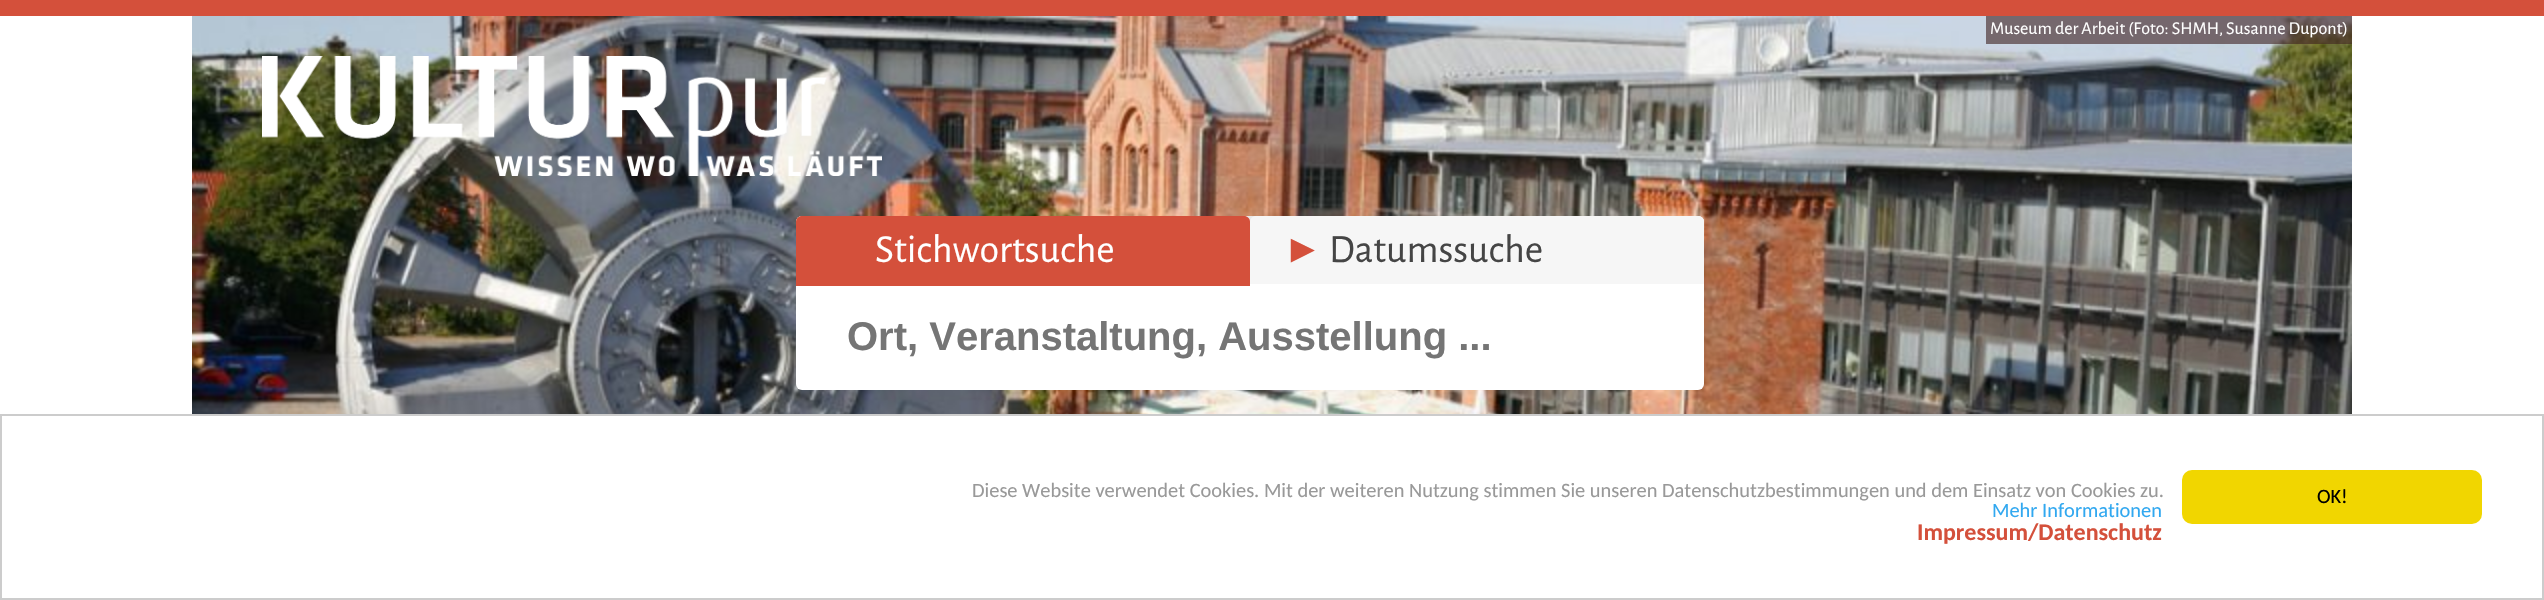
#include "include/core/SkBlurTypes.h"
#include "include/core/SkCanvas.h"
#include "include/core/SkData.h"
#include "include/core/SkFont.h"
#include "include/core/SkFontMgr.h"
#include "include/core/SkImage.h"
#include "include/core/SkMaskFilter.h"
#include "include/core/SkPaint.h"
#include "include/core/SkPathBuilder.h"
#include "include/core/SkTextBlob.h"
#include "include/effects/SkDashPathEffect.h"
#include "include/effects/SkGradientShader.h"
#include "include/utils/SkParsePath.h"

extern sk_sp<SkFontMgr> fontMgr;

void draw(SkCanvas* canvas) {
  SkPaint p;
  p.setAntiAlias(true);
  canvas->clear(SK_ColorWHITE);
  p.setColor(SkColorSetRGB(212, 80, 59));
  canvas->drawRect(SkRect::MakeLTRB(0, 0, 2544, 16), p);
  canvas->drawImageRect(SkImages::DeferredFromEncodedData(SkData::MakeFromFileName("images/1.png")), SkRect::MakeLTRB(192, 16, 2352, 414), SkSamplingOptions());
  p.setColor(SkColorSetARGB(153, 60, 30, 30));
  canvas->drawRect(SkRect::MakeLTRB(1986, 16, 2352, 44), p);
  canvas->drawImageRect(SkImages::DeferredFromEncodedData(SkData::MakeFromFileName("images/2.png")), SkRect::MakeLTRB(262, 56, 882, 176), SkSamplingOptions());
  p.setColor(SK_ColorWHITE);
  canvas->drawRoundRect(SkRect::MakeLTRB(796, 216, 1704, 390), 6, 6, p);
  p.setColor(SkColorSetRGB(233, 233, 233));
  canvas->drawRoundRect(SkRect::MakeLTRB(796, 216, 1704, 284), 6, 6, p);
  p.setColor(SkColorSetRGB(212, 80, 59));
  canvas->drawPath(SkPathBuilder().moveTo(802, 216).lineTo(1244, 216).cubicTo(1247.5f, 216, 1250, 218.5f, 1250, 222).lineTo(1250, 286).lineTo(796, 286).lineTo(796, 222).cubicTo(796, 218.5f, 798.5f, 216, 802, 216).close().detach(), p);
  p.setColor(SkColorSetRGB(246, 246, 246));
  canvas->drawPath(SkPathBuilder().moveTo(1256, 216).lineTo(1698, 216).cubicTo(1701.5f, 216, 1704, 218.5f, 1704, 222).lineTo(1704, 284).lineTo(1250, 284).lineTo(1250, 222).cubicTo(1250, 218.5f, 1252.5f, 216, 1256, 216).close().detach(), p);
  p.setStyle(SkPaint::kStroke_Style);
  p.setStrokeWidth(2);
  p.setColor(SkColorSetRGB(204, 204, 204));
  canvas->drawRect(SkRect::MakeLTRB(1, 415, 2543, 599), p);
  p.setStyle(SkPaint::kFill_Style);
  p.setColor(SkColorSetRGB(241, 214, 0));
  canvas->drawRoundRect(SkRect::MakeLTRB(2182, 470, 2482, 524), 10, 10, p);
  SkFont font1(fontMgr->matchFamilyStyle("Alegreya Sans", SkFontStyle::Normal()), 18);
  font1.setSubpixel(true);
  p.setColor(SK_ColorWHITE);
  canvas->drawString("Museum der Arbeit (Foto: SHMH, Susanne Dupont)", 1990, 34, font1, p);
  SkFont font2(fontMgr->matchFamilyStyle("Alegreya Sans", SkFontStyle::Normal()), 40);
  font2.setSubpixel(true);
  canvas->drawString("Stichwortsuche", 875, 262, font2, p);
  SkFont font3(fontMgr->matchFamilyStyle("Liberation Sans", SkFontStyle::Normal()), 40);
  font3.setSubpixel(true);
  p.setColor(SkColorSetRGB(212, 80, 59));
  canvas->drawString("►", 1283, 262, font3, p);
  p.setColor(SkColorSetRGB(69, 69, 69));
  canvas->drawString("Datumssuche", 1329, 262, font2, p);
  SkFont font4(fontMgr->matchFamilyStyle("Liberation Sans", SkFontStyle::Bold()), 40);
  font4.setSubpixel(true);
  p.setColor(SkColorSetRGB(117, 117, 117));
  canvas->drawString("Ort, Veranstaltung, Ausstellung ...", 847, 350, font4, p);
  SkFont font5(fontMgr->matchFamilyStyle("Carlito", SkFontStyle::Normal()), 20.4f);
  font5.setSubpixel(true);
  p.setColor(SkColorSetRGB(153, 153, 153));
  canvas->drawString("Diese Website verwendet Cookies. Mit der weiteren Nutzung stimmen Sie unseren Datenschutzbestimmungen und dem Einsatz von Cookies zu.", 972, 497, font5, p);
  p.setColor(SkColorSetRGB(49, 168, 240));
  canvas->drawString("Mehr Informationen", 1992, 517, font5, p);
  SkFont font6(fontMgr->matchFamilyStyle("Carlito", SkFontStyle::Bold()), 24);
  font6.setSubpixel(true);
  p.setColor(SkColorSetRGB(212, 80, 59));
  canvas->drawString("Impressum/Datenschutz", 1917, 540, font6, p);
  p.setColor(SK_ColorBLACK);
  canvas->drawString("OK!", 2317, 503, font5, p);
}
